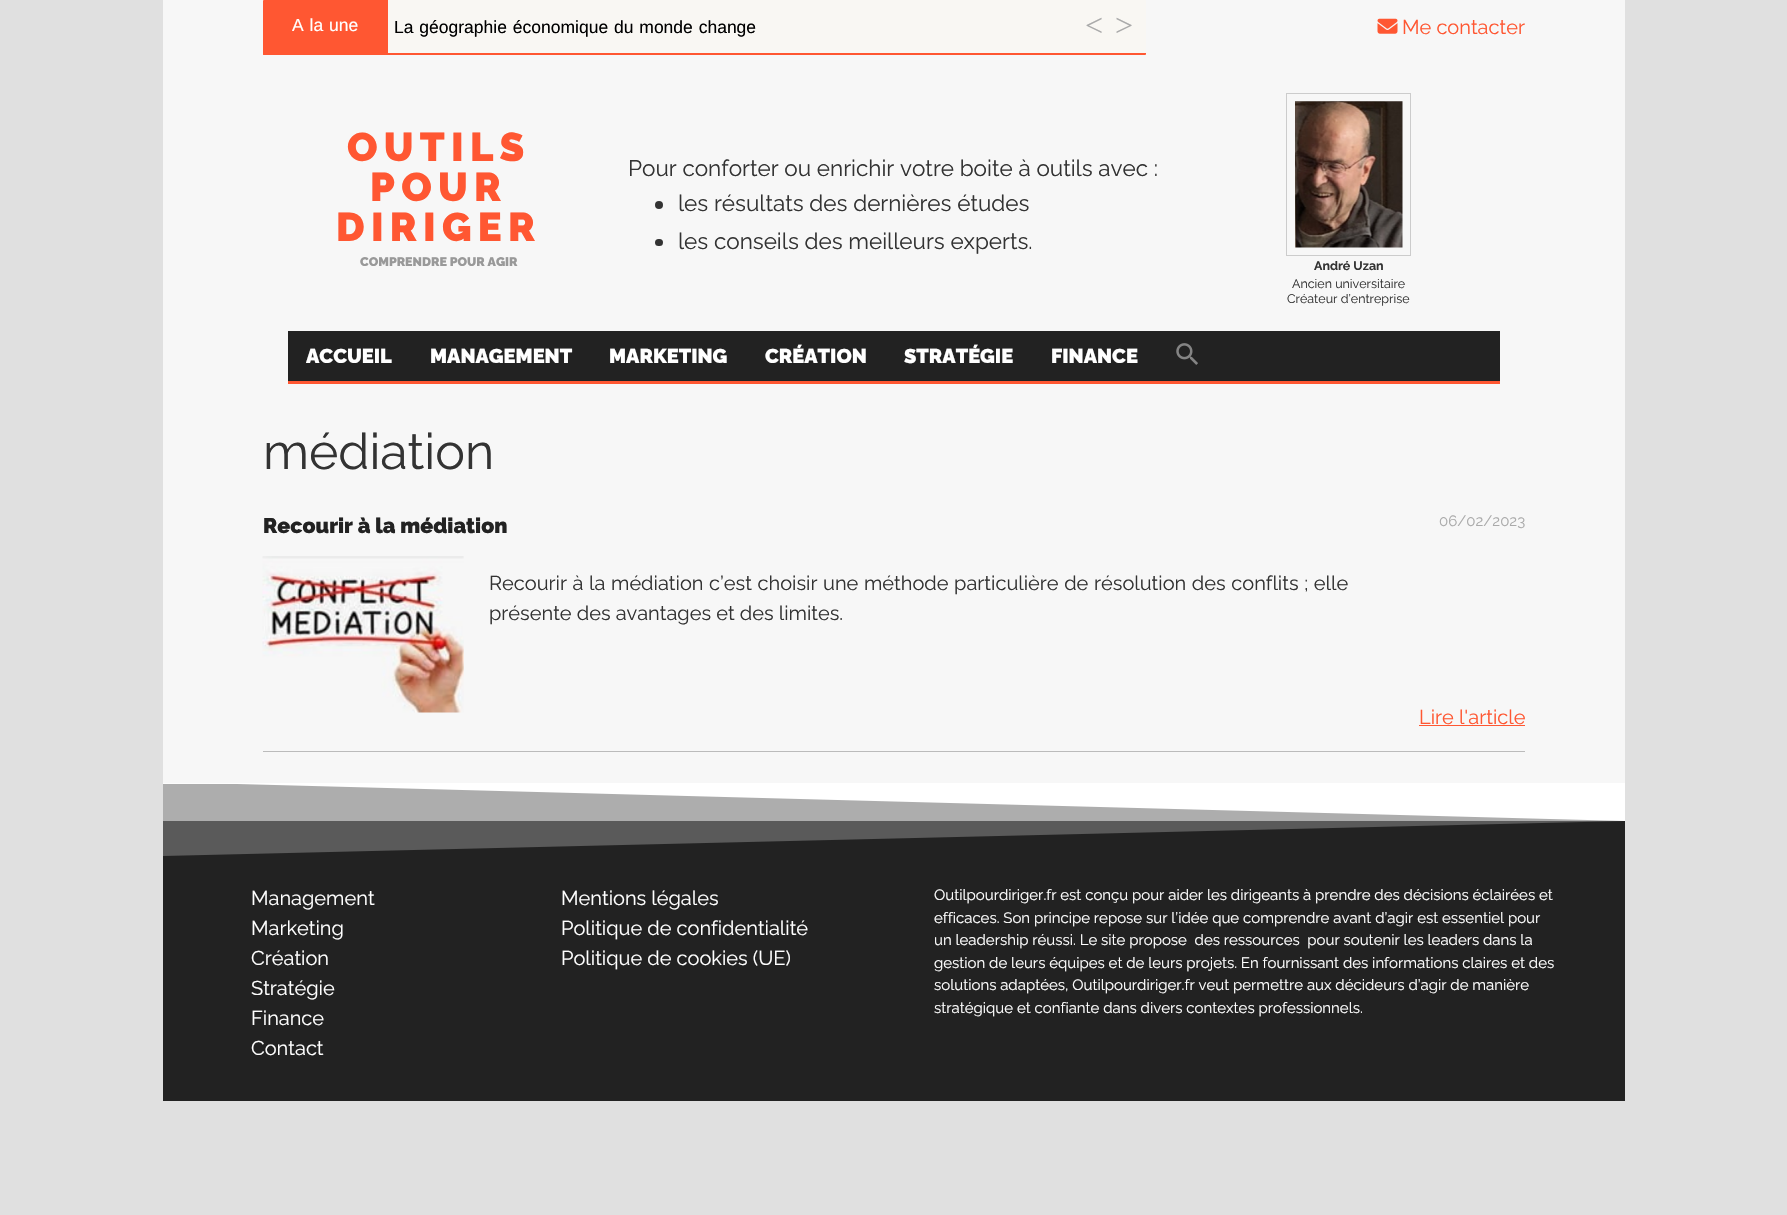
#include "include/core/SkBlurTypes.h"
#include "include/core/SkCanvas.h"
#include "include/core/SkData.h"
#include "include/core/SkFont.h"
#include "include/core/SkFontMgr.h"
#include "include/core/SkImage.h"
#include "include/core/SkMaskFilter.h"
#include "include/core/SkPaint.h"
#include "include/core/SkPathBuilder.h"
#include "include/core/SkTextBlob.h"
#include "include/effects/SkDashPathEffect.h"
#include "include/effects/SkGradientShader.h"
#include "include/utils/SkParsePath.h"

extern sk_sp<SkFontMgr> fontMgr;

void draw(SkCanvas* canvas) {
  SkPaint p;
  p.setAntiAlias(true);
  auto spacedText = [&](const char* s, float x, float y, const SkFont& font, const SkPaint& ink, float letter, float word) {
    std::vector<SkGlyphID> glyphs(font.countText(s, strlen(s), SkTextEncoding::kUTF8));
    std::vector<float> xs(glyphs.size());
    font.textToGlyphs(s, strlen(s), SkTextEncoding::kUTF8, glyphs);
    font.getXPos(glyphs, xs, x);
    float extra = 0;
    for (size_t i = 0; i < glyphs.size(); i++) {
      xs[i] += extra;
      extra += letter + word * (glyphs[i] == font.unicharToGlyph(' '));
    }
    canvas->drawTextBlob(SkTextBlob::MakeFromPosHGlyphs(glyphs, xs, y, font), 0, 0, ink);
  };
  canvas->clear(SkColorSetRGB(224, 224, 224));
  p.setColor(SkColorSetRGB(247, 247, 247));
  canvas->drawRect(SkRect::MakeLTRB(163, 0, 1625, 783), p);
  p.setColor(SkColorSetRGB(251, 251, 251));
  canvas->drawRect(SkRect::MakeLTRB(163, 783, 237, 784), p);
  p.setColor(SkColorSetRGB(249, 247, 243));
  canvas->drawRoundRect(SkRect::MakeLTRB(263, 0, 1146, 55), 1, 1, p);
  p.setColor(SkColorSetRGB(255, 87, 50));
  canvas->drawPath(SkPathBuilder().moveTo(264, 0).lineTo(388, 0).lineTo(388, 55).lineTo(264, 55).cubicTo(263.5f, 55, 263, 54.5f, 263, 54).lineTo(263, 1).cubicTo(263, 0.5f, 263.5f, 0, 264, 0).close().detach(), p);
  canvas->drawPath(SkPathBuilder().moveTo(263, 53).lineTo(1146, 53).lineTo(1146, 54).cubicTo(1146, 54.5f, 1145.5f, 55, 1145, 55).lineTo(264, 55).cubicTo(263.5f, 55, 263, 54.5f, 263, 54).close().detach(), p);
  canvas->drawImageRect(SkImages::DeferredFromEncodedData(SkData::MakeFromFileName("images/1.png")), SkRect::MakeLTRB(1377, 18, 1398, 34), SkSamplingOptions());
  p.setColor(SkColorSetRGB(51, 51, 51));
  canvas->drawCircle(659, 205, 4, p);
  canvas->drawRoundRect(SkRect::MakeLTRB(655, 239, 663, 246), 3.5f, 3.5f, p);
  p.setStyle(SkPaint::kStroke_Style);
  p.setStrokeWidth(1);
  p.setColor(SkColorSetRGB(204, 204, 204));
  canvas->drawRect(SkRect::MakeLTRB(1286.5f, 93.5f, 1410.5f, 255.5f), p);
  canvas->drawImageRect(SkImages::DeferredFromEncodedData(SkData::MakeFromFileName("images/2.png")), SkRect::MakeLTRB(1295, 101, 1403, 248), SkSamplingOptions());
  p.setStyle(SkPaint::kFill_Style);
  p.setColor(SkColorSetRGB(34, 34, 34));
  canvas->drawRect(SkRect::MakeLTRB(288, 331, 1500, 381), p);
  p.setColor(SkColorSetRGB(255, 87, 50));
  canvas->drawRect(SkRect::MakeLTRB(288, 381, 1500, 384), p);
  canvas->drawImageRect(SkImages::DeferredFromEncodedData(SkData::MakeFromFileName("images/3.png")), SkRect::MakeLTRB(1176, 343, 1198, 365), SkSamplingOptions());
  p.setColor(SkColorSetRGB(187, 187, 187));
  canvas->drawRect(SkRect::MakeLTRB(263, 751, 1525, 752), p);
  canvas->drawImageRect(SkImages::DeferredFromEncodedData(SkData::MakeFromFileName("images/4.png")), SkRect::MakeLTRB(262, 556, 464, 713), SkSamplingOptions());
  p.setColor(SkColorSetRGB(255, 87, 50));
  canvas->drawRect(SkRect::MakeLTRB(1419, 725, 1525, 726), p);
  p.setColor(SkColorSetRGB(34, 34, 34));
  canvas->drawRect(SkRect::MakeLTRB(163, 821, 1625, 1101), p);
  p.setColor(SkColorSetRGB(145, 145, 145));
  canvas->drawRect(SkRect::MakeLTRB(163, 784, 1625, 821), p);
  canvas->save();
  canvas->clipRect(SkRect::MakeLTRB(163, 783, 1625, 856));
  p.setColor(SK_ColorWHITE);
  canvas->drawPath(SkPathBuilder().moveTo(162, 782).lineTo(1626, 782).lineTo(1626, 821).close().detach(), p);
  p.setColor(SkColorSetARGB(64, 255, 255, 255));
  canvas->drawPath(SkPathBuilder().moveTo(1626, 782).lineTo(162, 782).lineTo(162, 856).lineTo(1626, 821).close().detach(), p);
  canvas->restore();
  SkFont font1(fontMgr->matchFamilyStyle("Liberation Sans", SkFontStyle::Normal()), 17.5f);
  font1.setSubpixel(true);
  p.setColor(SK_ColorWHITE);
  spacedText("A la une", 292, 31, font1, p, 0, 1);
  p.setColor(SK_ColorBLACK);
  spacedText("La géographie économique du monde change", 394, 33, font1, p, 0, 1);
  SkFont font2(fontMgr->matchFamilyStyle("Liberation Serif", SkFontStyle::Normal()), 32);
  font2.setSubpixel(true);
  p.setColor(SkColorSetRGB(170, 170, 170));
  canvas->drawString("<", 1085, 36, font2, p);
  canvas->drawString(">", 1115, 36, font2, p);
  SkFont font3(fontMgr->matchFamilyStyle("Raleway", SkFontStyle::Normal()), 20);
  font3.setSubpixel(true);
  p.setColor(SkColorSetRGB(255, 87, 50));
  canvas->drawString("Me contacter", 1402, 34, font3, p);
  SkFont font4(fontMgr->matchFamilyStyle("Raleway", SkFontStyle(900, SkFontStyle::kNormal_Width, SkFontStyle::kUpright_Slant)), 40);
  font4.setSubpixel(true);
  spacedText("OUTILS", 347, 161, font4, p, 6.25f, 0);
  spacedText("POUR", 370, 201, font4, p, 6.25f, 0);
  spacedText("DIRIGER", 336, 241, font4, p, 6.25f, 0);
  SkFont font5(fontMgr->matchFamilyStyle("Raleway", SkFontStyle(900, SkFontStyle::kNormal_Width, SkFontStyle::kUpright_Slant)), 12.5f);
  font5.setSubpixel(true);
  p.setColor(SkColorSetRGB(153, 153, 153));
  canvas->drawString("COMPRENDRE POUR AGIR", 360, 266, font5, p);
  SkFont font6(fontMgr->matchFamilyStyle("Raleway", SkFontStyle::Normal()), 22.5f);
  font6.setSubpixel(true);
  p.setColor(SkColorSetRGB(51, 51, 51));
  canvas->drawString("Pour conforter ou enrichir votre boite à outils avec :", 628, 176, font6, p);
  canvas->drawString("les résultats des dernières études", 678, 211, font6, p);
  canvas->drawString("les conseils des meilleurs experts.", 678, 249, font6, p);
  SkFont font7(fontMgr->matchFamilyStyle("Raleway", SkFontStyle::Bold()), 12.5f);
  font7.setSubpixel(true);
  canvas->drawString("André Uzan", 1314, 270, font7, p);
  SkFont font8(fontMgr->matchFamilyStyle("Raleway", SkFontStyle::Normal()), 12.5f);
  font8.setSubpixel(true);
  canvas->drawString("Ancien universitaire", 1292, 288, font8, p);
  canvas->drawString("Créateur d’entreprise", 1287, 303, font8, p);
  SkFont font9(fontMgr->matchFamilyStyle("Raleway", SkFontStyle(900, SkFontStyle::kNormal_Width, SkFontStyle::kUpright_Slant)), 20);
  font9.setSubpixel(true);
  p.setColor(SK_ColorWHITE);
  canvas->drawString("ACCUEIL", 306, 363, font9, p);
  canvas->drawString("MANAGEMENT", 430, 363, font9, p);
  canvas->drawString("MARKETING", 609, 363, font9, p);
  canvas->drawString("CRÉATION", 765, 363, font9, p);
  canvas->drawString("STRATÉGIE", 904, 363, font9, p);
  canvas->drawString("FINANCE", 1051, 363, font9, p);
  SkFont font10(fontMgr->matchFamilyStyle("Raleway", SkFontStyle::Normal()), 50);
  font10.setSubpixel(true);
  p.setColor(SkColorSetRGB(51, 51, 51));
  canvas->drawString("médiation", 263, 469, font10, p);
  SkFont font11(fontMgr->matchFamilyStyle("Raleway", SkFontStyle(900, SkFontStyle::kNormal_Width, SkFontStyle::kUpright_Slant)), 21.25f);
  font11.setSubpixel(true);
  p.setColor(SkColorSetRGB(34, 34, 34));
  canvas->drawString("Recourir à la médiation", 263, 533, font11, p);
  SkFont font12(fontMgr->matchFamilyStyle("Raleway", SkFontStyle::Normal()), 15);
  font12.setSubpixel(true);
  p.setColor(SkColorSetRGB(170, 170, 170));
  canvas->drawString("06/02/2023", 1439, 526, font12, p);
  p.setColor(SkColorSetRGB(51, 51, 51));
  spacedText("Recourir à la médiation c’est choisir une méthode particulière de résolution des conflits ; elle", 489, 590, font3, p, 0, 0.5f);
  canvas->drawString("présente des avantages et des limites.", 489, 620, font3, p);
  p.setColor(SkColorSetRGB(255, 87, 50));
  canvas->drawString("Lire l'article", 1419, 724, font3, p);
  p.setColor(SK_ColorWHITE);
  canvas->drawString("Management", 251, 905, font3, p);
  canvas->drawString("Marketing", 251, 935, font3, p);
  canvas->drawString("Création", 251, 965, font3, p);
  canvas->drawString("Stratégie", 251, 995, font3, p);
  canvas->drawString("Finance", 251, 1025, font3, p);
  canvas->drawString("Contact", 251, 1055, font3, p);
  canvas->drawString("Mentions légales", 561, 905, font3, p);
  canvas->drawString("Politique de confidentialité", 561, 935, font3, p);
  canvas->drawString("Politique de cookies (UE)", 561, 965, font3, p);
  canvas->drawString("Outilpourdiriger.fr est conçu pour aider les dirigeants à prendre des décisions éclairées et", 934, 900, font12, p);
  canvas->drawString("efficaces. Son principe repose sur l’idée que comprendre avant d’agir est essentiel pour", 934, 923, font12, p);
  canvas->drawString("un leadership réussi. Le site propose  des ressources  pour soutenir les leaders dans la", 934, 945, font12, p);
  canvas->drawString("gestion de leurs équipes et de leurs projets. En fournissant des informations claires et des", 934, 968, font12, p);
  canvas->drawString("solutions adaptées, Outilpourdiriger.fr veut permettre aux décideurs d’agir de manière", 934, 990, font12, p);
  canvas->drawString("stratégique et confiante dans divers contextes professionnels.", 934, 1013, font12, p);
}
